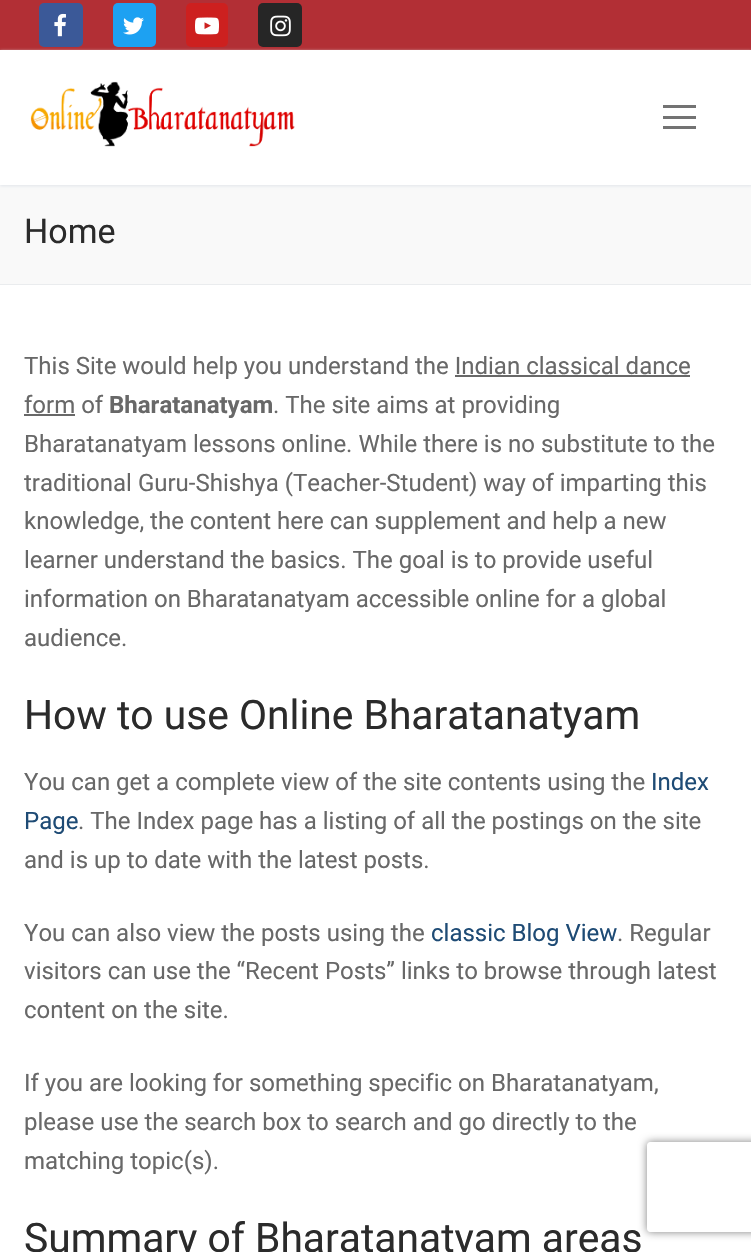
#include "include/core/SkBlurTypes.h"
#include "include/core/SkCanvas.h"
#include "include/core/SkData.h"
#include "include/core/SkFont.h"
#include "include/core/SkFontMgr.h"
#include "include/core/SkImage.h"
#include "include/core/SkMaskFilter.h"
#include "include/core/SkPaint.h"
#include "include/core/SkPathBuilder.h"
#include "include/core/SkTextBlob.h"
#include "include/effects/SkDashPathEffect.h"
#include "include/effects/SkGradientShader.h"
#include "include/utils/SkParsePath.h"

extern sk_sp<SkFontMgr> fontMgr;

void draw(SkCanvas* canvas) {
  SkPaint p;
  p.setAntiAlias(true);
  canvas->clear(SkColorSetRGB(249, 249, 249));
  p.setColor(SkColorSetRGB(178, 47, 53));
  canvas->drawRect(SkRect::MakeLTRB(0, 0, 751, 50), p);
  p.setColor(SkColorSetRGB(225, 229, 234));
  p.setMaskFilter(SkMaskFilter::MakeBlur(kNormal_SkBlurStyle, 1.5f));
  canvas->drawRect(SkRect::MakeLTRB(0, 51, 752, 186), p);
  p.setMaskFilter(nullptr);
  p.setColor(SkColorSetRGB(59, 89, 152));
  canvas->drawRoundRect(SkRect::MakeLTRB(39, 3, 83, 47), 5, 5, p);
  canvas->drawImageRect(SkImages::DeferredFromEncodedData(SkData::MakeFromFileName("images/1.png")), SkRect::MakeLTRB(54, 13, 66, 37), SkSamplingOptions());
  p.setColor(SkColorSetRGB(29, 161, 242));
  canvas->drawRoundRect(SkRect::MakeLTRB(113, 3, 156, 47), 5, 5, p);
  canvas->drawImageRect(SkImages::DeferredFromEncodedData(SkData::MakeFromFileName("images/2.png")), SkRect::MakeLTRB(123, 17, 144, 35), SkSamplingOptions());
  p.setColor(SkColorSetRGB(205, 32, 31));
  canvas->drawRoundRect(SkRect::MakeLTRB(186, 3, 228, 47), 5, 5, p);
  canvas->drawImageRect(SkImages::DeferredFromEncodedData(SkData::MakeFromFileName("images/3.png")), SkRect::MakeLTRB(195, 17, 219, 35), SkSamplingOptions());
  p.setColor(SkColorSetRGB(38, 38, 38));
  canvas->drawRoundRect(SkRect::MakeLTRB(258, 3, 302, 47), 5, 5, p);
  canvas->drawImageRect(SkImages::DeferredFromEncodedData(SkData::MakeFromFileName("images/4.png")), SkRect::MakeLTRB(270, 15, 291, 37), SkSamplingOptions());
  p.setColor(SK_ColorWHITE);
  canvas->drawRect(SkRect::MakeLTRB(0, 50, 751, 185), p);
  canvas->drawImageRect(SkImages::DeferredFromEncodedData(SkData::MakeFromFileName("images/5.png")), SkRect::MakeLTRB(30, 81, 295, 147), SkSamplingOptions());
  p.setColor(SkColorSetRGB(115, 115, 115));
  canvas->drawRect(SkRect::MakeLTRB(663, 116, 696, 119), p);
  canvas->drawRect(SkRect::MakeLTRB(663, 105, 696, 108), p);
  canvas->drawRect(SkRect::MakeLTRB(663, 126, 696, 129), p);
  p.setColor(SkColorSetRGB(234, 236, 238));
  canvas->drawRect(SkRect::MakeLTRB(0, 284, 751, 285), p);
  p.setColor(SK_ColorWHITE);
  canvas->drawRect(SkRect::MakeLTRB(0, 285, 751, 1252), p);
  p.setColor(SkColorSetRGB(104, 104, 104));
  canvas->drawRect(SkRect::MakeLTRB(455, 375, 690, 377), p);
  canvas->drawRect(SkRect::MakeLTRB(24, 414, 75, 416), p);
  canvas->save();
  canvas->clipPath(SkPathBuilder(SkPathFillType::kEvenOdd).moveTo(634, 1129).lineTo(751, 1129).lineTo(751, 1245).lineTo(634, 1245).close().moveTo(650, 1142).lineTo(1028, 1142).cubicTo(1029.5f, 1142, 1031, 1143.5f, 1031, 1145).lineTo(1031, 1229).cubicTo(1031, 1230.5f, 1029.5f, 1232, 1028, 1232).lineTo(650, 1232).cubicTo(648.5f, 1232, 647, 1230.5f, 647, 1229).lineTo(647, 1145).cubicTo(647, 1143.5f, 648.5f, 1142, 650, 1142).close().detach(), true);
  p.setColor(SkColorSetRGB(128, 128, 128));
  p.setMaskFilter(SkMaskFilter::MakeBlur(kNormal_SkBlurStyle, 4));
  canvas->drawRoundRect(SkRect::MakeLTRB(647, 1142, 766, 1232), 3, 3, p);
  p.setMaskFilter(nullptr);
  canvas->restore();
  SkFont font1(fontMgr->matchFamilyStyle("Roboto", SkFontStyle::Normal()), 34);
  font1.setSubpixel(true);
  p.setColor(SkColorSetRGB(43, 43, 43));
  canvas->drawString("Home", 24, 243, font1, p);
  SkFont font2(fontMgr->matchFamilyStyle("Roboto", SkFontStyle::Normal()), 24);
  font2.setSubpixel(true);
  p.setColor(SkColorSetRGB(104, 104, 104));
  canvas->drawString("This Site would help you understand the Indian classical dance", 24, 374, font2, p);
  canvas->drawString("form of", 24, 413, font2, p);
  SkFont font3(fontMgr->matchFamilyStyle("Roboto", SkFontStyle::Bold()), 24);
  font3.setSubpixel(true);
  canvas->drawString("Bharatanatyam", 109, 413, font3, p);
  canvas->drawString(". The site aims at providing", 273, 413, font2, p);
  canvas->drawString("Bharatanatyam lessons online. While there is no substitute to the", 24, 452, font2, p);
  canvas->drawString("traditional Guru-Shishya (Teacher-Student) way of imparting this", 24, 491, font2, p);
  canvas->drawString("knowledge, the content here can supplement and help a new", 24, 529, font2, p);
  canvas->drawString("learner understand the basics. The goal is to provide useful", 24, 568, font2, p);
  canvas->drawString("information on Bharatanatyam accessible online for a global", 24, 607, font2, p);
  canvas->drawString("audience.", 24, 646, font2, p);
  SkFont font4(fontMgr->matchFamilyStyle("Roboto", SkFontStyle::Normal()), 40.75f);
  font4.setSubpixel(true);
  p.setColor(SkColorSetRGB(43, 43, 43));
  canvas->drawString("How to use Online Bharatanatyam", 24, 729, font4, p);
  p.setColor(SkColorSetRGB(104, 104, 104));
  canvas->drawString("You can get a complete view of the site contents using the", 24, 790, font2, p);
  p.setColor(SkColorSetRGB(30, 75, 117));
  canvas->drawString("Index", 651, 790, font2, p);
  canvas->drawString("Page", 24, 829, font2, p);
  p.setColor(SkColorSetRGB(104, 104, 104));
  canvas->drawString(". The Index page has a listing of all the postings on the site", 78, 829, font2, p);
  canvas->drawString("and is up to date with the latest posts.", 24, 868, font2, p);
  canvas->drawString("You can also view the posts using the", 24, 941, font2, p);
  p.setColor(SkColorSetRGB(30, 75, 117));
  canvas->drawString("classic Blog View", 431, 941, font2, p);
  p.setColor(SkColorSetRGB(104, 104, 104));
  canvas->drawString(". Regular", 617, 941, font2, p);
  canvas->drawString("visitors can use the “Recent Posts” links to browse through latest", 24, 979, font2, p);
  canvas->drawString("content on the site.", 24, 1018, font2, p);
  canvas->drawString("If you are looking for something specific on Bharatanatyam,", 24, 1091, font2, p);
  canvas->drawString("please use the search box to search and go directly to the", 24, 1130, font2, p);
  canvas->drawString("matching topic(s).", 24, 1169, font2, p);
  p.setColor(SkColorSetRGB(43, 43, 43));
  canvas->drawString("Summary of Bharatanatyam areas", 24, 1252, font4, p);
}
